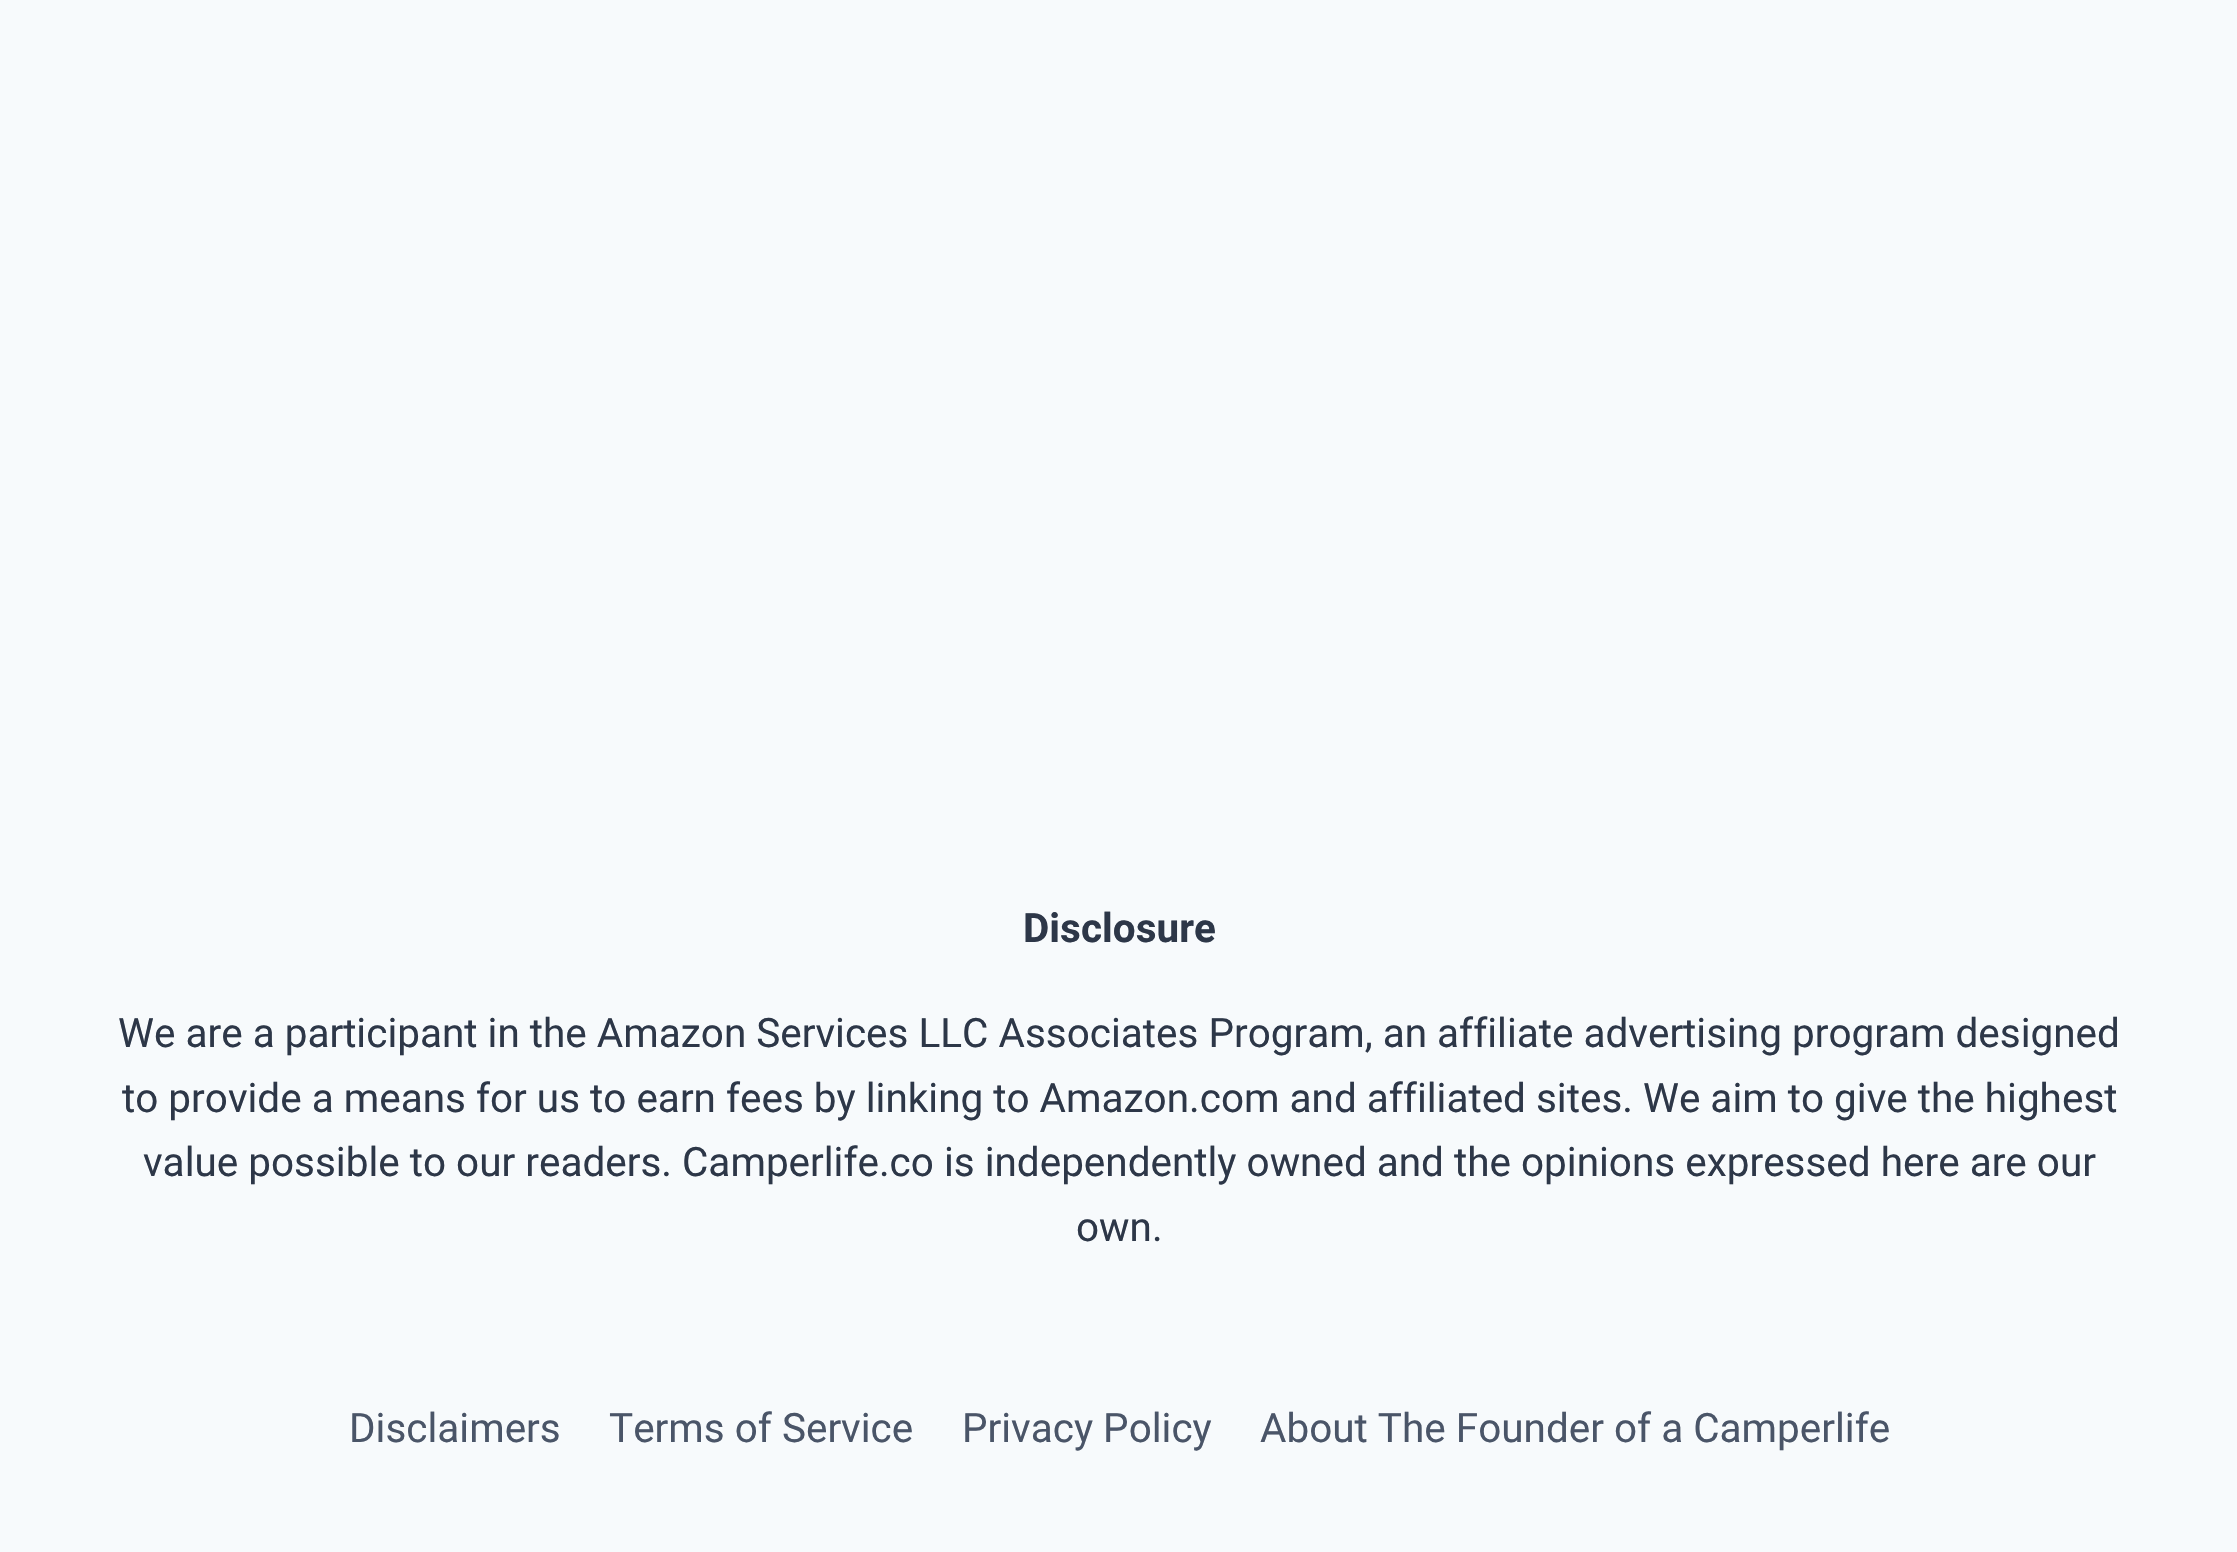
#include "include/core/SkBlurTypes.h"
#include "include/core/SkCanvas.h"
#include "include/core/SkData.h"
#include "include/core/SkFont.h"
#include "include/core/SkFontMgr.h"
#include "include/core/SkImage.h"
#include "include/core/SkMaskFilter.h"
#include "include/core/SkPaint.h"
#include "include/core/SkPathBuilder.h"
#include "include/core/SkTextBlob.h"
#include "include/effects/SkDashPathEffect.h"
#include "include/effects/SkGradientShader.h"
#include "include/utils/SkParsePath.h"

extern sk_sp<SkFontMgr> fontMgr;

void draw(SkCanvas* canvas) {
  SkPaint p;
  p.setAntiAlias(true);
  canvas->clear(SkColorSetRGB(247, 250, 252));
  SkFont font1(fontMgr->matchFamilyStyle("Roboto", SkFontStyle::Bold()), 40.5f);
  font1.setSubpixel(true);
  p.setColor(SkColorSetRGB(45, 55, 72));
  canvas->drawString("Disclosure", 1023, 942, font1, p);
  SkFont font2(fontMgr->matchFamilyStyle("Roboto", SkFontStyle::Normal()), 40.5f);
  font2.setSubpixel(true);
  canvas->drawString("We are a participant in the Amazon Services LLC Associates Program, an affiliate advertising program designed", 118, 1047, font2, p);
  canvas->drawString("to provide a means for us to earn fees by linking to Amazon.com and affiliated sites. We aim to give the highest", 122, 1112, font2, p);
  canvas->drawString("value possible to our readers. Camperlife.co is independently owned and the opinions expressed here are our", 143, 1176, font2, p);
  canvas->drawString("own.", 1076, 1241, font2, p);
  p.setColor(SkColorSetRGB(74, 85, 104));
  canvas->drawString("Disclaimers", 349, 1442, font2, p);
  canvas->drawString("Terms of Service", 609, 1442, font2, p);
  canvas->drawString("Privacy Policy", 962, 1442, font2, p);
  canvas->drawString("About The Founder of a Camperlife", 1260, 1442, font2, p);
}
